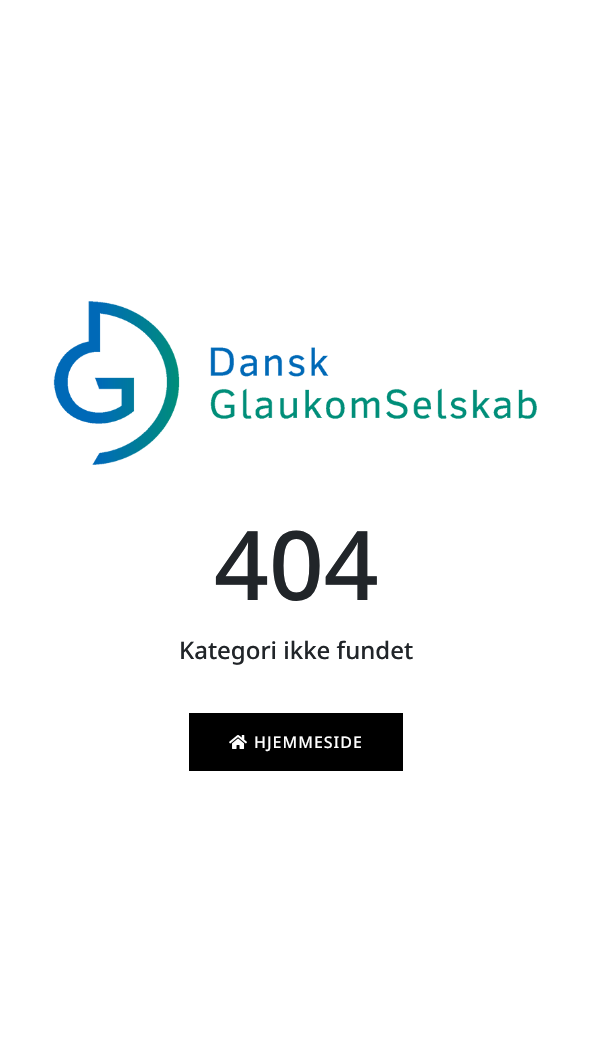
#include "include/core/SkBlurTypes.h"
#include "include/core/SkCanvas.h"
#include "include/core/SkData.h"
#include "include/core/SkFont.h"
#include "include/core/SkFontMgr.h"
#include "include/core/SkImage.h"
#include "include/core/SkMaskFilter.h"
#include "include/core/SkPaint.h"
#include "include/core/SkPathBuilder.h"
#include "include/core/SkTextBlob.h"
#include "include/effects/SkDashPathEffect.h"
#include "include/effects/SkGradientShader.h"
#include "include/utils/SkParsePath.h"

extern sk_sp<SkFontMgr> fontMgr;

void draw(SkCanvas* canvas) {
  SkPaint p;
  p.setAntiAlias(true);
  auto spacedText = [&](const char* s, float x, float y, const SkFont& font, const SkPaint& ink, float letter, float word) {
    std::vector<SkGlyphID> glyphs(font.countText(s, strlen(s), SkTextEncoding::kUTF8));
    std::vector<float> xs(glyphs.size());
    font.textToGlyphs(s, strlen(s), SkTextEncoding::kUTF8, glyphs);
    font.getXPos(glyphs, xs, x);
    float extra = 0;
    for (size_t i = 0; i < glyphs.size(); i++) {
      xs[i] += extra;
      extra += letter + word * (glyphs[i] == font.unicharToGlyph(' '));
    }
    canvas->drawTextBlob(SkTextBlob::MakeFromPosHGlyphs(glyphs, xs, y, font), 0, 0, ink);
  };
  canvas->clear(SK_ColorWHITE);
  canvas->drawImageRect(SkImages::DeferredFromEncodedData(SkData::MakeFromFileName("images/1.png")), SkRect::MakeLTRB(53, 301, 537, 465), SkSamplingOptions());
  p.setColor(SK_ColorBLACK);
  canvas->drawRect(SkRect::MakeLTRB(189, 713, 403, 771), p);
  canvas->drawImageRect(SkImages::DeferredFromEncodedData(SkData::MakeFromFileName("images/2.png")), SkRect::MakeLTRB(229, 735, 247, 749), SkSamplingOptions());
  SkFont font1(fontMgr->matchFamilyStyle("Noto Sans", SkFontStyle(500, SkFontStyle::kNormal_Width, SkFontStyle::kUpright_Slant)), 96);
  font1.setSubpixel(true);
  p.setColor(SkColorSetRGB(33, 37, 41));
  canvas->drawString("404", 214, 600, font1, p);
  SkFont font2(fontMgr->matchFamilyStyle("Noto Sans", SkFontStyle(500, SkFontStyle::kNormal_Width, SkFontStyle::kUpright_Slant)), 24);
  font2.setSubpixel(true);
  canvas->drawString("Kategori ikke fundet", 179, 659, font2, p);
  SkFont font3(fontMgr->matchFamilyStyle("Noto Sans", SkFontStyle(500, SkFontStyle::kNormal_Width, SkFontStyle::kUpright_Slant)), 16);
  font3.setSubpixel(true);
  p.setColor(SK_ColorWHITE);
  spacedText("HJEMMESIDE", 254, 748, font3, p, 1, 0);
}
